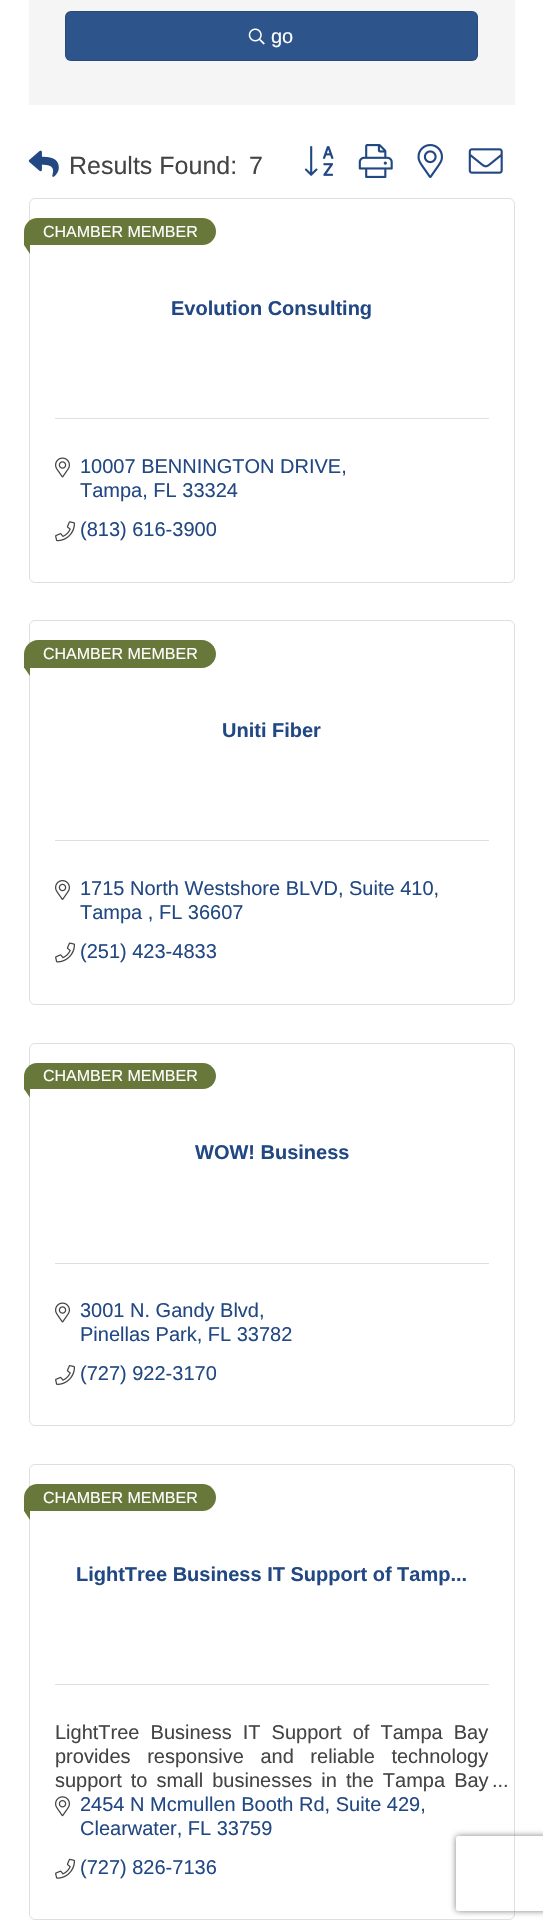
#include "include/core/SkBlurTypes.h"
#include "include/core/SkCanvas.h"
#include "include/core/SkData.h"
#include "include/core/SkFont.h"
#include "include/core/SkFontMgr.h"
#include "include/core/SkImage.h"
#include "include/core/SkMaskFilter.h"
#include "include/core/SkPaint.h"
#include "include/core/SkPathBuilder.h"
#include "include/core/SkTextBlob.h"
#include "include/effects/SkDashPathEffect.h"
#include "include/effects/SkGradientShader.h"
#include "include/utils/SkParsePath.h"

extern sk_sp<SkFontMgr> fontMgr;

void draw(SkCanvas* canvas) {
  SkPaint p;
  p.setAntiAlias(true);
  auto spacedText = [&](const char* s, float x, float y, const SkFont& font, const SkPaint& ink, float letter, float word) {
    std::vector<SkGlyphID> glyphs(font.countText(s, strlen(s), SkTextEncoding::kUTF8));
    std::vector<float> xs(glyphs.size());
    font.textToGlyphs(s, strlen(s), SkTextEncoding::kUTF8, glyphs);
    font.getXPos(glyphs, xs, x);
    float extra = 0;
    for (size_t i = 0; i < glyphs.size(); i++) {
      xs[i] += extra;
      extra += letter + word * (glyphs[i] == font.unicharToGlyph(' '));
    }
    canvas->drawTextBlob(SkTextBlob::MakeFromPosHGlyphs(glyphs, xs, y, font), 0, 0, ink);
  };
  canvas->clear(SK_ColorWHITE);
  p.setColor(SkColorSetRGB(245, 245, 245));
  canvas->drawRect(SkRect::MakeLTRB(29, 0, 515, 105), p);
  p.setColor(SkColorSetRGB(45, 84, 139));
  canvas->drawRoundRect(SkRect::MakeLTRB(65, 11, 478, 61), 6, 6, p);
  p.setStyle(SkPaint::kStroke_Style);
  p.setStrokeWidth(1);
  p.setColor(SkColorSetARGB(31, 0, 0, 0));
  canvas->drawRoundRect(SkRect::MakeLTRB(65.5f, 11.5f, 477.5f, 60.5f), 5.5f, 5.5f, p);
  canvas->drawImageRect(SkImages::DeferredFromEncodedData(SkData::MakeFromFileName("images/1.png")), SkRect::MakeLTRB(248, 28, 265, 45), SkSamplingOptions());
  canvas->drawImageRect(SkImages::DeferredFromEncodedData(SkData::MakeFromFileName("images/2.png")), SkRect::MakeLTRB(28, 150, 59, 177), SkSamplingOptions());
  canvas->drawImageRect(SkImages::DeferredFromEncodedData(SkData::MakeFromFileName("images/3.png")), SkRect::MakeLTRB(304, 146, 334, 176), SkSamplingOptions());
  canvas->drawImageRect(SkImages::DeferredFromEncodedData(SkData::MakeFromFileName("images/4.png")), SkRect::MakeLTRB(358, 144, 393, 178), SkSamplingOptions());
  canvas->drawImageRect(SkImages::DeferredFromEncodedData(SkData::MakeFromFileName("images/5.png")), SkRect::MakeLTRB(417, 144, 443, 178), SkSamplingOptions());
  canvas->drawImageRect(SkImages::DeferredFromEncodedData(SkData::MakeFromFileName("images/6.png")), SkRect::MakeLTRB(468, 148, 503, 174), SkSamplingOptions());
  p.setColor(SkColorSetRGB(223, 223, 223));
  canvas->drawRoundRect(SkRect::MakeLTRB(29.5f, 198.5f, 514.5f, 582.5f), 5.5f, 5.5f, p);
  p.setStyle(SkPaint::kFill_Style);
  p.setColor(SkColorSetRGB(104, 120, 59));
  canvas->drawPath(SkPathBuilder().moveTo(37.5f, 218).lineTo(202.5f, 218).cubicTo(210, 218, 216, 224, 216, 231.5f).cubicTo(216, 239, 210, 245, 202.5f, 245).lineTo(24.5f, 245).cubicTo(24, 245, 24, 245, 24, 244.5f).lineTo(24, 231.5f).cubicTo(24, 224, 30, 218, 37.5f, 218).close().detach(), p);
  canvas->drawPath(SkPathBuilder().moveTo(30, 236).lineTo(30, 254).lineTo(24, 245).close().detach(), p);
  p.setColor(SkColorSetRGB(223, 223, 223));
  canvas->drawRect(SkRect::MakeLTRB(55, 418, 489, 419), p);
  canvas->drawImageRect(SkImages::DeferredFromEncodedData(SkData::MakeFromFileName("images/7.png")), SkRect::MakeLTRB(55, 457, 70, 478), SkSamplingOptions());
  canvas->drawImageRect(SkImages::DeferredFromEncodedData(SkData::MakeFromFileName("images/8.png")), SkRect::MakeLTRB(55, 521, 75, 542), SkSamplingOptions());
  p.setStyle(SkPaint::kStroke_Style);
  canvas->drawRoundRect(SkRect::MakeLTRB(29.5f, 620.5f, 514.5f, 1004.5f), 5.5f, 5.5f, p);
  p.setStyle(SkPaint::kFill_Style);
  p.setColor(SkColorSetRGB(104, 120, 59));
  canvas->drawPath(SkPathBuilder().moveTo(38, 640).lineTo(202, 640).cubicTo(209.5f, 640, 216, 646.5f, 216, 654).cubicTo(216, 661.5f, 209.5f, 668, 202, 668).lineTo(24.5f, 668).cubicTo(24, 668, 24, 668, 24, 667.5f).lineTo(24, 654).cubicTo(24, 646.5f, 30.5f, 640, 38, 640).close().detach(), p);
  canvas->drawPath(SkPathBuilder().moveTo(30, 659).lineTo(30, 676).lineTo(24, 667.5f).close().detach(), p);
  p.setColor(SkColorSetRGB(223, 223, 223));
  canvas->drawRect(SkRect::MakeLTRB(55, 840, 489, 841), p);
  canvas->drawImageRect(SkImages::DeferredFromEncodedData(SkData::MakeFromFileName("images/9.png")), SkRect::MakeLTRB(55, 880, 70, 900), SkSamplingOptions());
  canvas->drawImageRect(SkImages::DeferredFromEncodedData(SkData::MakeFromFileName("images/10.png")), SkRect::MakeLTRB(55, 942, 75, 963), SkSamplingOptions());
  p.setStyle(SkPaint::kStroke_Style);
  canvas->drawRoundRect(SkRect::MakeLTRB(29.5f, 1043.5f, 514.5f, 1425.5f), 5.5f, 5.5f, p);
  p.setStyle(SkPaint::kFill_Style);
  p.setColor(SkColorSetRGB(104, 120, 59));
  canvas->drawPath(SkPathBuilder().moveTo(37, 1063).lineTo(203, 1063).cubicTo(210, 1063, 216, 1069, 216, 1076).cubicTo(216, 1083, 210, 1089, 203, 1089).lineTo(24.5f, 1089).cubicTo(24, 1089, 24, 1089, 24, 1088.5f).lineTo(24, 1076).cubicTo(24, 1069, 30, 1063, 37, 1063).close().detach(), p);
  canvas->drawPath(SkPathBuilder().moveTo(30, 1080).lineTo(30, 1097.5f).lineTo(24, 1089).close().detach(), p);
  p.setColor(SkColorSetRGB(223, 223, 223));
  canvas->drawRect(SkRect::MakeLTRB(55, 1263, 489, 1264), p);
  canvas->drawImageRect(SkImages::DeferredFromEncodedData(SkData::MakeFromFileName("images/7.png")), SkRect::MakeLTRB(55, 1302, 70, 1323), SkSamplingOptions());
  canvas->drawImageRect(SkImages::DeferredFromEncodedData(SkData::MakeFromFileName("images/11.png")), SkRect::MakeLTRB(55, 1365, 75, 1385), SkSamplingOptions());
  p.setStyle(SkPaint::kStroke_Style);
  canvas->drawRoundRect(SkRect::MakeLTRB(29.5f, 1464.5f, 514.5f, 1919.5f), 5.5f, 5.5f, p);
  p.setStyle(SkPaint::kFill_Style);
  p.setColor(SkColorSetRGB(104, 120, 59));
  canvas->drawPath(SkPathBuilder().moveTo(37.5f, 1484).lineTo(202.5f, 1484).cubicTo(210, 1484, 216, 1490, 216, 1497.5f).cubicTo(216, 1505, 210, 1511, 202.5f, 1511).lineTo(24.5f, 1511).cubicTo(24, 1511, 24, 1511, 24, 1510.5f).lineTo(24, 1497.5f).cubicTo(24, 1490, 30, 1484, 37.5f, 1484).close().detach(), p);
  canvas->drawPath(SkPathBuilder().moveTo(30, 1502.5f).lineTo(30, 1520).lineTo(24, 1511).close().detach(), p);
  p.setColor(SkColorSetRGB(223, 223, 223));
  canvas->drawRect(SkRect::MakeLTRB(55, 1684, 489, 1685), p);
  canvas->drawImageRect(SkImages::DeferredFromEncodedData(SkData::MakeFromFileName("images/12.png")), SkRect::MakeLTRB(55, 1796, 70, 1817), SkSamplingOptions());
  canvas->drawImageRect(SkImages::DeferredFromEncodedData(SkData::MakeFromFileName("images/13.png")), SkRect::MakeLTRB(55, 1858, 75, 1879), SkSamplingOptions());
  canvas->save();
  canvas->clipPath(SkPathBuilder(SkPathFillType::kEvenOdd).moveTo(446, 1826).lineTo(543, 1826).lineTo(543, 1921).lineTo(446, 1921).close().moveTo(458.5f, 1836).lineTo(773.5f, 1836).cubicTo(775, 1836, 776, 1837, 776, 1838.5f).lineTo(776, 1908.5f).cubicTo(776, 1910, 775, 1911, 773.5f, 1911).lineTo(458.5f, 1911).cubicTo(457, 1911, 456, 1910, 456, 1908.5f).lineTo(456, 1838.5f).cubicTo(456, 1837, 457, 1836, 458.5f, 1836).close().detach(), true);
  p.setColor(SkColorSetRGB(128, 128, 128));
  p.setMaskFilter(SkMaskFilter::MakeBlur(kNormal_SkBlurStyle, 3));
  canvas->drawRoundRect(SkRect::MakeLTRB(456, 1836, 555, 1911), 2.5f, 2.5f, p);
  p.setMaskFilter(nullptr);
  canvas->restore();
  SkFont font1(fontMgr->matchFamilyStyle("Liberation Sans", SkFontStyle::Normal()), 20);
  font1.setSubpixel(true);
  p.setColor(SK_ColorWHITE);
  canvas->drawString("go", 271, 43, font1, p);
  SkFont font2(fontMgr->matchFamilyStyle("Liberation Sans", SkFontStyle::Normal()), 25);
  font2.setSubpixel(true);
  p.setColor(SkColorSetRGB(68, 68, 68));
  canvas->drawString("Results Found:", 69, 174, font2, p);
  canvas->drawString("7", 249, 174, font2, p);
  SkFont font3(fontMgr->matchFamilyStyle("Liberation Sans", SkFontStyle::Normal()), 16);
  font3.setSubpixel(true);
  p.setColor(SK_ColorWHITE);
  canvas->drawString("CHAMBER MEMBER", 43, 237, font3, p);
  SkFont font4(fontMgr->matchFamilyStyle("Liberation Sans", SkFontStyle::Bold()), 20);
  font4.setSubpixel(true);
  p.setColor(SkColorSetRGB(34, 72, 132));
  canvas->drawString("Evolution Consulting", 171, 315, font4, p);
  canvas->drawString("10007 BENNINGTON DRIVE,", 80, 473, font1, p);
  canvas->drawString("Tampa, FL 33324", 80, 497, font1, p);
  canvas->drawString("(813) 616-3900", 80, 536, font1, p);
  p.setColor(SK_ColorWHITE);
  canvas->drawString("CHAMBER MEMBER", 43, 659, font3, p);
  p.setColor(SkColorSetRGB(34, 72, 132));
  canvas->drawString("Uniti Fiber", 222, 737, font4, p);
  canvas->drawString("1715 North Westshore BLVD, Suite 410,", 80, 895, font1, p);
  canvas->drawString("Tampa , FL 36607", 80, 919, font1, p);
  canvas->drawString("(251) 423-4833", 80, 958, font1, p);
  p.setColor(SK_ColorWHITE);
  canvas->drawString("CHAMBER MEMBER", 43, 1081, font3, p);
  p.setColor(SkColorSetRGB(34, 72, 132));
  canvas->drawString("WOW! Business", 195, 1159, font4, p);
  canvas->drawString("3001 N. Gandy Blvd,", 80, 1317, font1, p);
  canvas->drawString("Pinellas Park, FL 33782", 80, 1341, font1, p);
  canvas->drawString("(727) 922-3170", 80, 1380, font1, p);
  p.setColor(SK_ColorWHITE);
  canvas->drawString("CHAMBER MEMBER", 43, 1503, font3, p);
  p.setColor(SkColorSetRGB(34, 72, 132));
  canvas->drawString("LightTree Business IT Support of Tamp...", 76, 1581, font4, p);
  p.setColor(SkColorSetRGB(68, 68, 68));
  spacedText("LightTree Business IT Support of Tampa Bay", 55, 1739, font1, p, 0, 5.5f);
  spacedText("provides responsive and reliable technology", 55, 1763, font1, p, 0, 11);
  spacedText("support to small businesses in the Tampa Bay", 55, 1787, font1, p, 0, 3.5f);
  canvas->drawString("...", 492, 1787, font1, p);
  p.setColor(SkColorSetRGB(34, 72, 132));
  canvas->drawString("2454 N Mcmullen Booth Rd, Suite 429,", 80, 1811, font1, p);
  canvas->drawString("Clearwater, FL 33759", 80, 1835, font1, p);
  canvas->drawString("(727) 826-7136", 80, 1874, font1, p);
}
